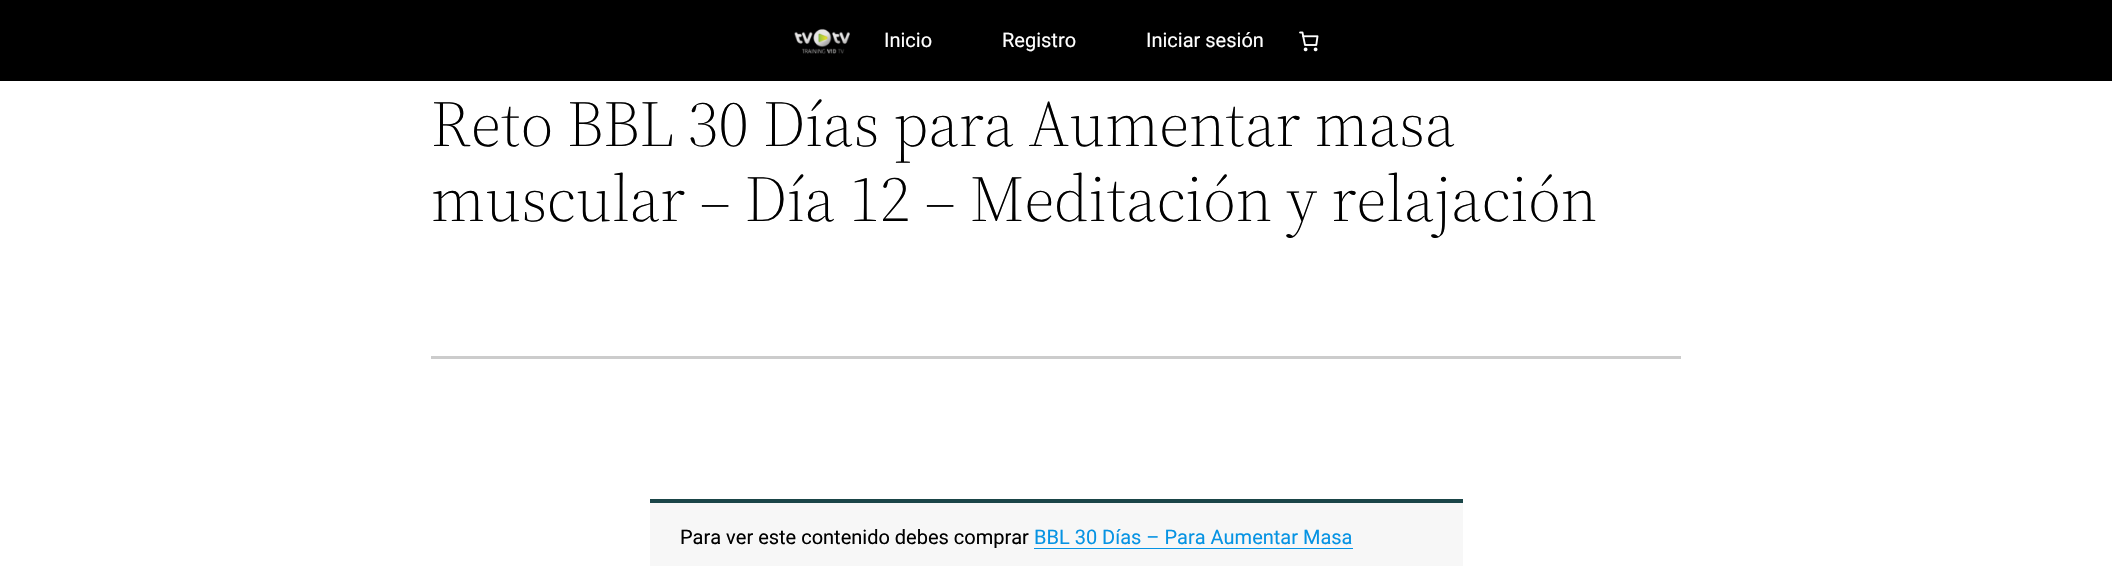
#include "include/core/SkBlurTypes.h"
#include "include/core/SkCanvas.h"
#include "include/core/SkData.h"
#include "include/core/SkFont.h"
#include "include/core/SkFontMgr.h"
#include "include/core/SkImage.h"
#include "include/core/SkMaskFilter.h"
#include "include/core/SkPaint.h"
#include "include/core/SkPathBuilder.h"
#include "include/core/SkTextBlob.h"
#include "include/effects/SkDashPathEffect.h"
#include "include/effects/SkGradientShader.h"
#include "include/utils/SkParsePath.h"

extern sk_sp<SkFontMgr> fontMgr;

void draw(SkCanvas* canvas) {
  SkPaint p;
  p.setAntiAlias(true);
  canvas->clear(SK_ColorWHITE);
  p.setColor(SK_ColorBLACK);
  canvas->drawRect(SkRect::MakeLTRB(0, 0, 2112, 81), p);
  canvas->drawImageRect(SkImages::DeferredFromEncodedData(SkData::MakeFromFileName("images/1.png")), SkRect::MakeLTRB(794, 28, 850, 54), SkSamplingOptions());
  canvas->drawImageRect(SkImages::DeferredFromEncodedData(SkData::MakeFromFileName("images/2.png")), SkRect::MakeLTRB(1299, 31, 1319, 52), SkSamplingOptions());
  p.setColor(SkColorSetRGB(204, 204, 204));
  canvas->drawRect(SkRect::MakeLTRB(431, 356, 1681, 359), p);
  p.setColor(SkColorSetRGB(247, 247, 247));
  canvas->drawRect(SkRect::MakeLTRB(650, 503, 1463, 566), p);
  p.setColor(SkColorSetRGB(26, 69, 72));
  canvas->drawRect(SkRect::MakeLTRB(650, 499, 1463, 503), p);
  p.setColor(SkColorSetRGB(6, 147, 227));
  canvas->drawRect(SkRect::MakeLTRB(1034, 548, 1353, 549), p);
  SkFont font1(fontMgr->matchFamilyStyle("Roboto", SkFontStyle::Normal()), 20);
  font1.setSubpixel(true);
  p.setColor(SK_ColorWHITE);
  canvas->drawString("Inicio", 884, 47, font1, p);
  canvas->drawString("Registro", 1002, 47, font1, p);
  canvas->drawString("Iniciar sesión", 1146, 47, font1, p);
  SkFont font2(fontMgr->matchFamilyStyle("Source Serif 4", SkFontStyle(300, SkFontStyle::kNormal_Width, SkFontStyle::kUpright_Slant)), 65);
  font2.setSubpixel(true);
  p.setColor(SK_ColorBLACK);
  canvas->drawString("Reto BBL 30 Días para Aumentar masa", 431, 146, font2, p);
  canvas->drawString("muscular – Día 12 – Meditación y relajación", 431, 221, font2, p);
  canvas->drawString("Para ver este contenido debes comprar", 680, 544, font1, p);
  p.setColor(SkColorSetRGB(6, 147, 227));
  canvas->drawString("BBL 30 Días – Para Aumentar Masa", 1034, 544, font1, p);
}
